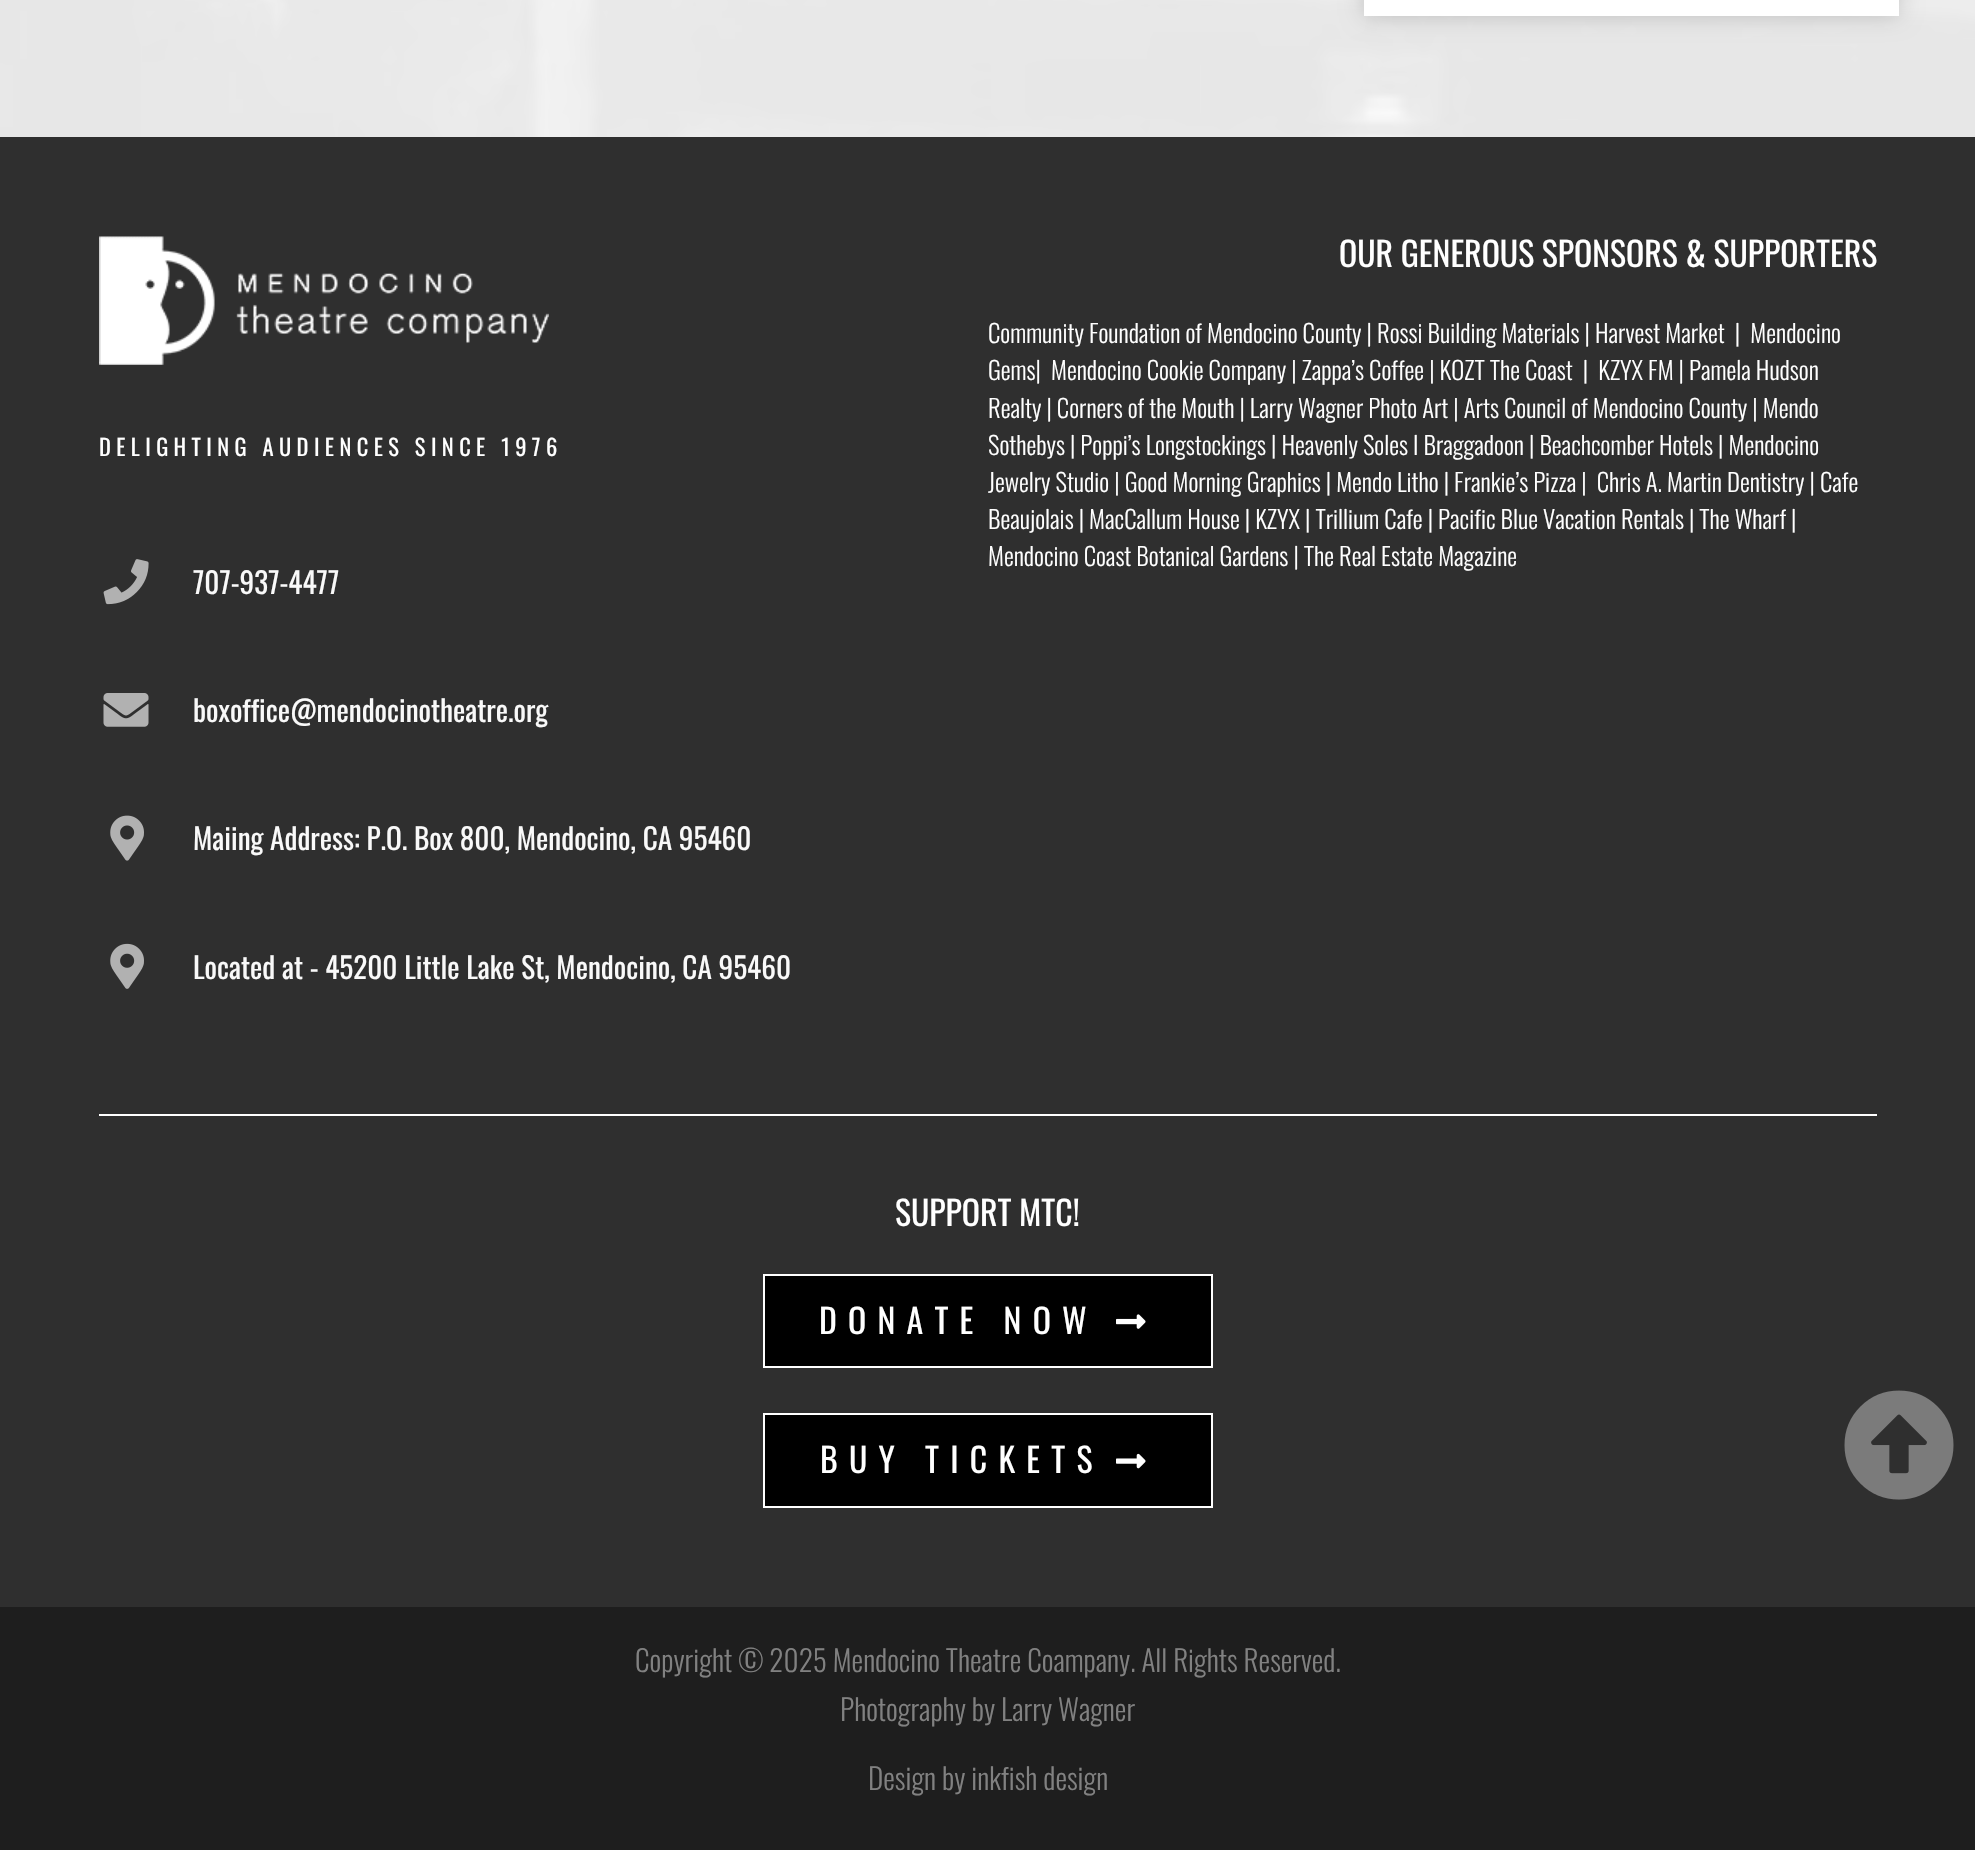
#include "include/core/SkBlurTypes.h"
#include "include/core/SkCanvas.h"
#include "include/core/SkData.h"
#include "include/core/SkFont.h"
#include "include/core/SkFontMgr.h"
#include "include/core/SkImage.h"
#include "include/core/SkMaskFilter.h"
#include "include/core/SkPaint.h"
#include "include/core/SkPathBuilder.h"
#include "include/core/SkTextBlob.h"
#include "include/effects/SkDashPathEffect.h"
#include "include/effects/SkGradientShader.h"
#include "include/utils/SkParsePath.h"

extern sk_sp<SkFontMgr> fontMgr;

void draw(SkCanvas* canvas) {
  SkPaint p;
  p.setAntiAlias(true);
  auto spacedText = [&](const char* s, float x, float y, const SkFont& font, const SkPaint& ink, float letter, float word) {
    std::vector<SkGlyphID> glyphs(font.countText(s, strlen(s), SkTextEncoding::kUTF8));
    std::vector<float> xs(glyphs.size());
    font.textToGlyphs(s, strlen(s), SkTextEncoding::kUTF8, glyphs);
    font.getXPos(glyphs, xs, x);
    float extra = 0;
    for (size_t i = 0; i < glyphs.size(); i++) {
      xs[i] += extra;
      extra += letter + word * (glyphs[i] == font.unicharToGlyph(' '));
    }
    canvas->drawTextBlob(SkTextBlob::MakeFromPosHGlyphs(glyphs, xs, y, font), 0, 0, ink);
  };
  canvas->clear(SK_ColorWHITE);
  canvas->drawImageRect(SkImages::DeferredFromEncodedData(SkData::MakeFromFileName("images/1.png")), SkRect::MakeLTRB(0, 0, 1975, 137), SkSamplingOptions());
  p.setColor(SkColorSetARGB(46, 0, 0, 0));
  p.setMaskFilter(SkMaskFilter::MakeBlur(kNormal_SkBlurStyle, 11));
  canvas->drawRect(SkRect::MakeLTRB(1364, -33, 1899, 16), p);
  p.setMaskFilter(nullptr);
  p.setColor(SK_ColorWHITE);
  canvas->drawRect(SkRect::MakeLTRB(1364, 0, 1899, 16), p);
  p.setColor(SkColorSetRGB(47, 47, 47));
  canvas->drawRect(SkRect::MakeLTRB(0, 137, 1975, 1607), p);
  canvas->drawImageRect(SkImages::DeferredFromEncodedData(SkData::MakeFromFileName("images/2.png")), SkRect::MakeLTRB(1844, 1390, 1954, 1500), SkSamplingOptions());
  canvas->drawImageRect(SkImages::DeferredFromEncodedData(SkData::MakeFromFileName("images/3.png")), SkRect::MakeLTRB(99, 236, 549, 365), SkSamplingOptions());
  canvas->drawImageRect(SkImages::DeferredFromEncodedData(SkData::MakeFromFileName("images/4.png")), SkRect::MakeLTRB(103, 559, 149, 605), SkSamplingOptions());
  canvas->drawImageRect(SkImages::DeferredFromEncodedData(SkData::MakeFromFileName("images/5.png")), SkRect::MakeLTRB(103, 693, 149, 727), SkSamplingOptions());
  canvas->drawImageRect(SkImages::DeferredFromEncodedData(SkData::MakeFromFileName("images/6.png")), SkRect::MakeLTRB(110, 815, 144, 861), SkSamplingOptions());
  canvas->drawImageRect(SkImages::DeferredFromEncodedData(SkData::MakeFromFileName("images/7.png")), SkRect::MakeLTRB(110, 943, 144, 989), SkSamplingOptions());
  p.setColor(SK_ColorWHITE);
  canvas->drawRect(SkRect::MakeLTRB(99, 1114, 1877, 1116), p);
  p.setColor(SK_ColorBLACK);
  canvas->drawRect(SkRect::MakeLTRB(764, 1275, 1212, 1367), p);
  p.setStyle(SkPaint::kStroke_Style);
  p.setStrokeWidth(2);
  p.setColor(SK_ColorWHITE);
  canvas->drawRect(SkRect::MakeLTRB(764, 1275, 1212, 1367), p);
  canvas->drawImageRect(SkImages::DeferredFromEncodedData(SkData::MakeFromFileName("images/8.png")), SkRect::MakeLTRB(1116, 1314, 1146, 1329), SkSamplingOptions());
  p.setStyle(SkPaint::kFill_Style);
  p.setColor(SK_ColorBLACK);
  canvas->drawRect(SkRect::MakeLTRB(764, 1414, 1212, 1507), p);
  p.setStyle(SkPaint::kStroke_Style);
  p.setColor(SK_ColorWHITE);
  canvas->drawRect(SkRect::MakeLTRB(764, 1414, 1212, 1507), p);
  canvas->drawImageRect(SkImages::DeferredFromEncodedData(SkData::MakeFromFileName("images/9.png")), SkRect::MakeLTRB(1116, 1453, 1146, 1469), SkSamplingOptions());
  p.setStyle(SkPaint::kFill_Style);
  p.setColor(SkColorSetRGB(30, 30, 30));
  canvas->drawRect(SkRect::MakeLTRB(0, 1607, 1975, 1850), p);
  SkFont font1(fontMgr->matchFamilyStyle("Oswald", SkFontStyle::Normal()), 22.5f);
  font1.setSubpixel(true);
  p.setColor(SK_ColorWHITE);
  spacedText("DELIGHTING AUDIENCES SINCE 1976", 99, 456, font1, p, 5.4f, 0);
  SkFont font2(fontMgr->matchFamilyStyle("Oswald", SkFontStyle::Normal()), 29.25f);
  font2.setSubpixel(true);
  p.setColor(SkColorSetRGB(249, 249, 249));
  canvas->drawString("707-937-4477", 193, 594, font2, p);
  canvas->drawString("boxoffice@mendocinotheatre.org", 193, 722, font2, p);
  canvas->drawString("Maiing Address: P.O. Box 800, Mendocino, CA 95460", 193, 850, font2, p);
  canvas->drawString("Located at - 45200 Little Lake St, Mendocino, CA 95460", 193, 979, font2, p);
  SkFont font3(fontMgr->matchFamilyStyle("Oswald", SkFontStyle::Normal()), 33.75f);
  font3.setSubpixel(true);
  p.setColor(SK_ColorWHITE);
  canvas->drawString("OUR GENEROUS SPONSORS & SUPPORTERS", 1339, 267, font3, p);
  SkFont font4(fontMgr->matchFamilyStyle("Oswald", SkFontStyle(300, SkFontStyle::kNormal_Width, SkFontStyle::kUpright_Slant)), 24.75f);
  font4.setSubpixel(true);
  canvas->drawString("Community Foundation of Mendocino County | Rossi Building Materials | Harvest Market  |  Mendocino", 988, 343, font4, p);
  canvas->drawString("Gems|  Mendocino Cookie Company | Zappa’s Coffee | KOZT The Coast  |  KZYX FM | Pamela Hudson", 988, 380, font4, p);
  canvas->drawString("Realty | Corners of the Mouth | Larry Wagner Photo Art | Arts Council of Mendocino County | Mendo", 988, 418, font4, p);
  canvas->drawString("Sothebys | Poppi’s Longstockings | Heavenly Soles I Braggadoon | Beachcomber Hotels | Mendocino", 988, 455, font4, p);
  canvas->drawString("Jewelry Studio | Good Morning Graphics | Mendo Litho | Frankie’s Pizza |  Chris A. Martin Dentistry | Cafe", 988, 492, font4, p);
  canvas->drawString("Beaujolais | MacCallum House | KZYX | Trillium Cafe | Pacific Blue Vacation Rentals | The Wharf |", 988, 529, font4, p);
  canvas->drawString("Mendocino Coast Botanical Gardens | The Real Estate Magazine", 988, 566, font4, p);
  canvas->drawString("SUPPORT MTC!", 895, 1226, font3, p);
  spacedText("DONATE NOW", 819, 1334, font3, p, 11.25f, 0);
  spacedText("BUY TICKETS", 820, 1473, font3, p, 11.25f, 0);
  SkFont font5(fontMgr->matchFamilyStyle("Oswald", SkFontStyle(300, SkFontStyle::kNormal_Width, SkFontStyle::kUpright_Slant)), 29.25f);
  font5.setSubpixel(true);
  p.setColor(SkColorSetRGB(129, 129, 129));
  canvas->drawString("Copyright © 2025 Mendocino Theatre Coampany. All Rights Reserved.", 635, 1672, font5, p);
  canvas->drawString("Photography by Larry Wagner", 840, 1721, font5, p);
  canvas->drawString("Design by inkfish design", 868, 1790, font5, p);
}
